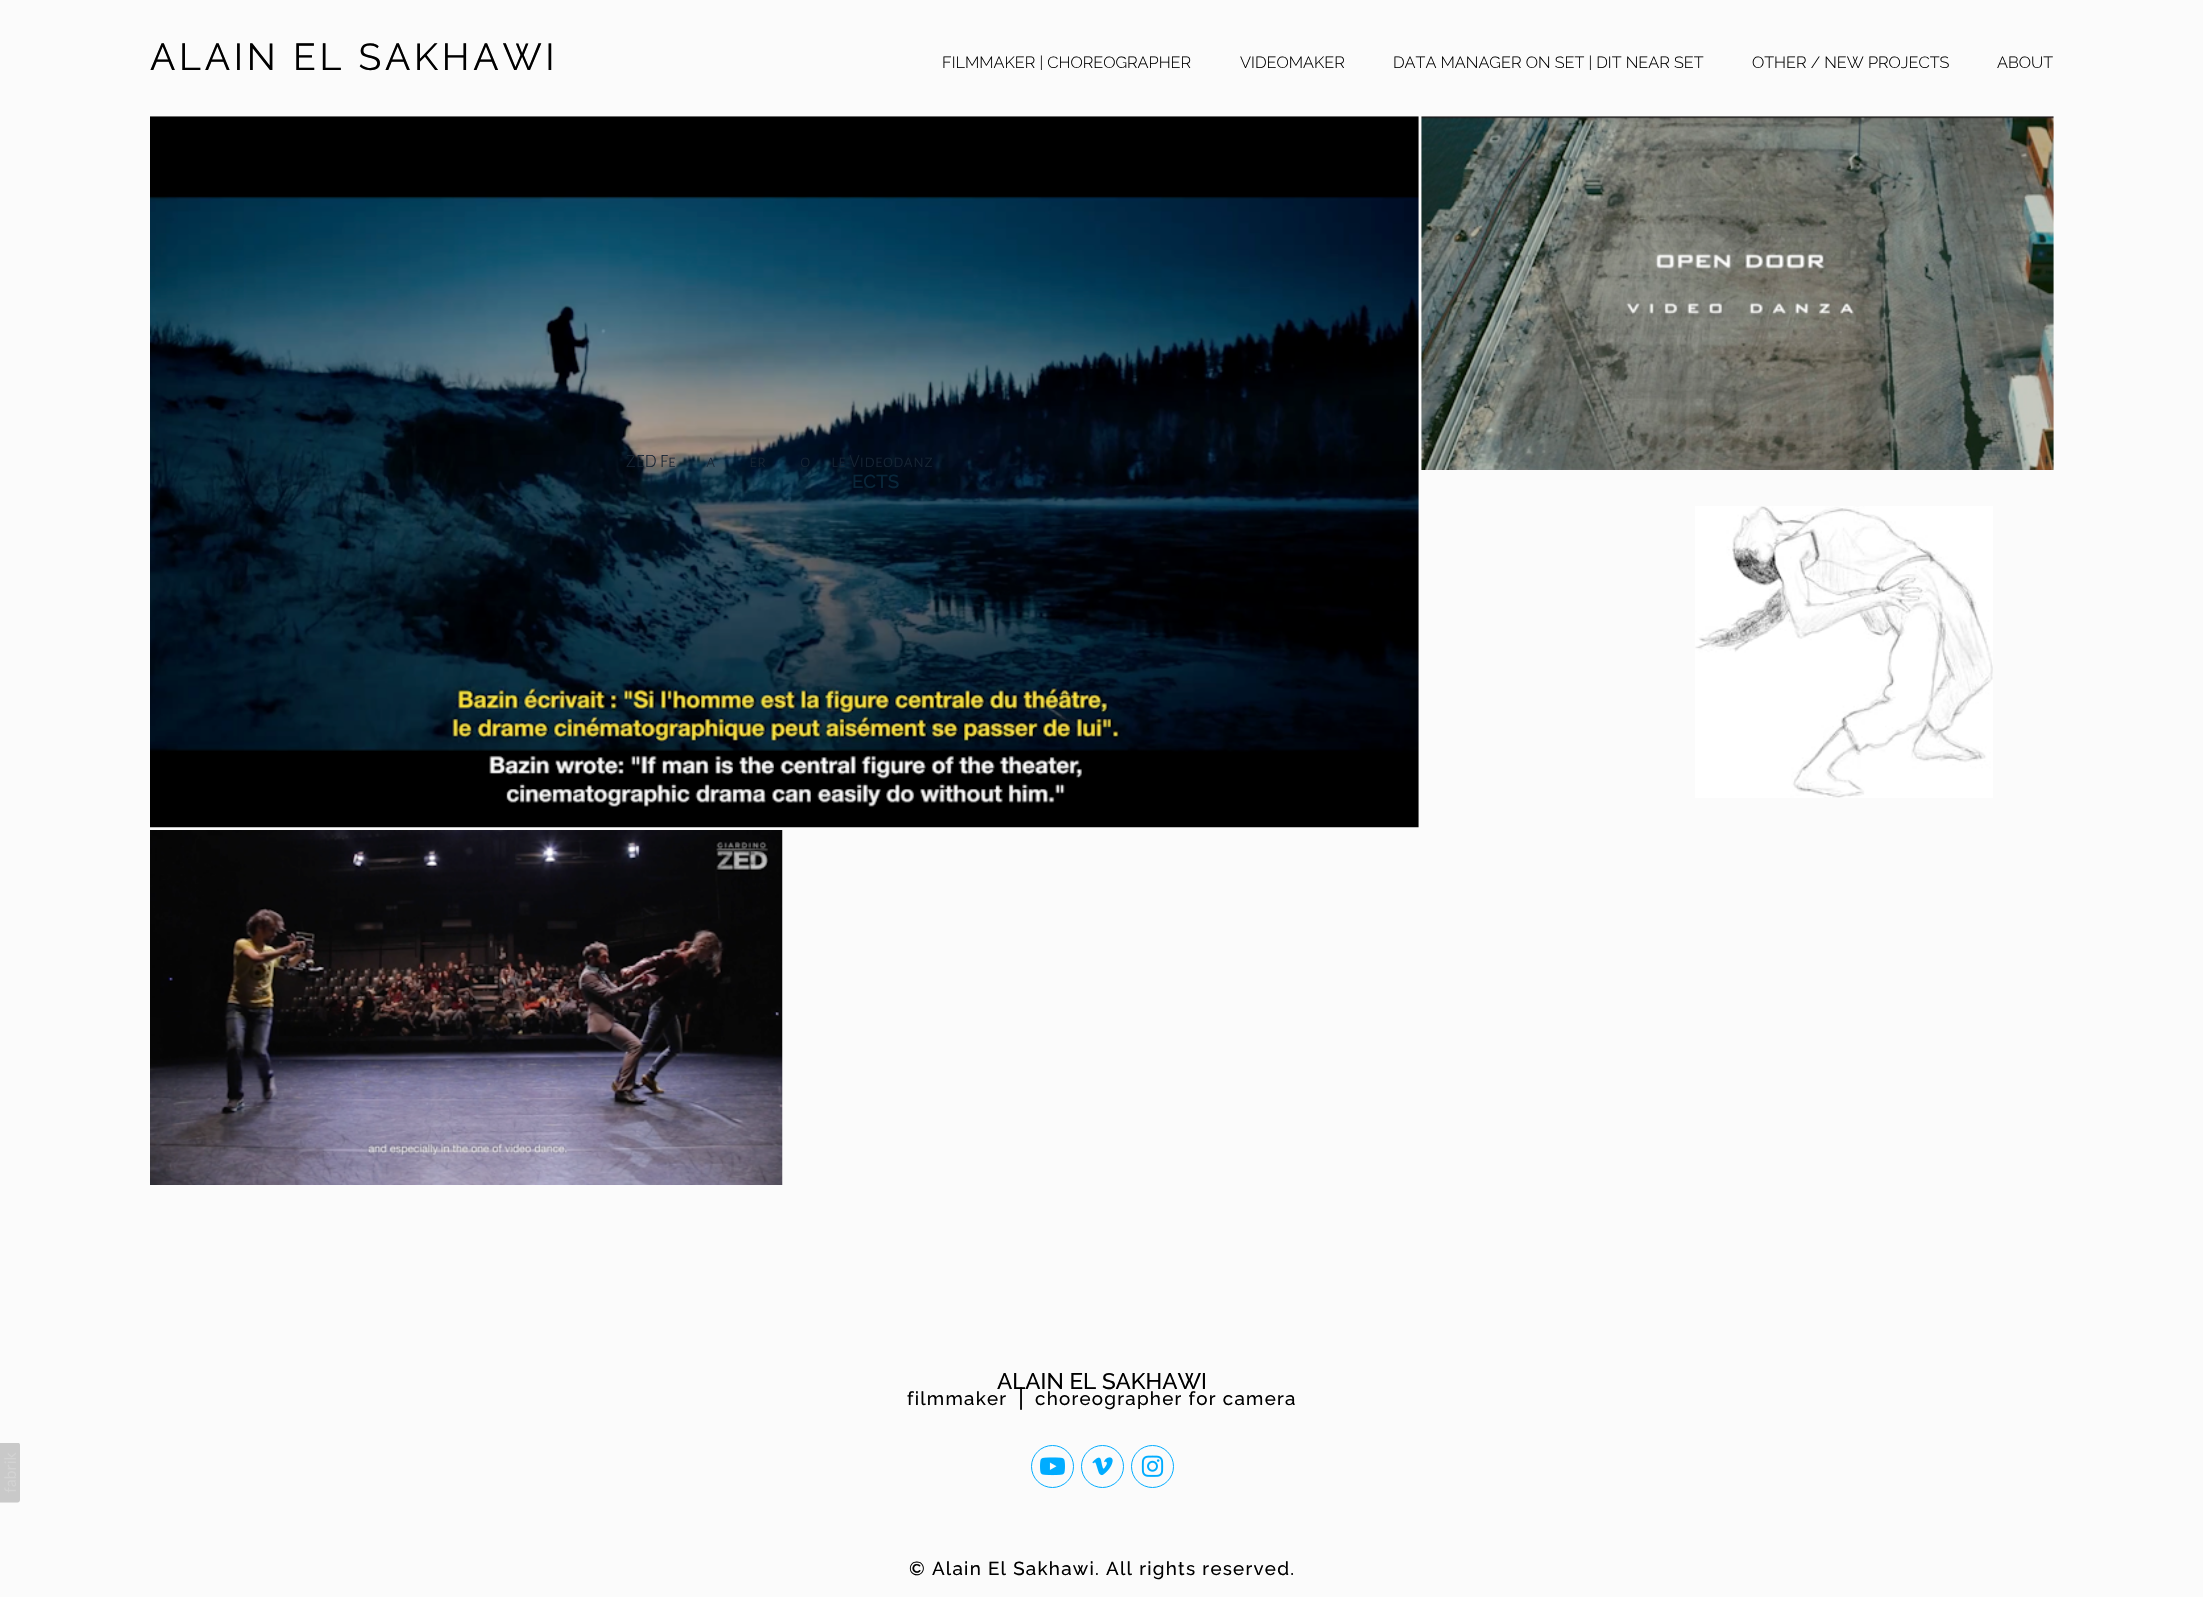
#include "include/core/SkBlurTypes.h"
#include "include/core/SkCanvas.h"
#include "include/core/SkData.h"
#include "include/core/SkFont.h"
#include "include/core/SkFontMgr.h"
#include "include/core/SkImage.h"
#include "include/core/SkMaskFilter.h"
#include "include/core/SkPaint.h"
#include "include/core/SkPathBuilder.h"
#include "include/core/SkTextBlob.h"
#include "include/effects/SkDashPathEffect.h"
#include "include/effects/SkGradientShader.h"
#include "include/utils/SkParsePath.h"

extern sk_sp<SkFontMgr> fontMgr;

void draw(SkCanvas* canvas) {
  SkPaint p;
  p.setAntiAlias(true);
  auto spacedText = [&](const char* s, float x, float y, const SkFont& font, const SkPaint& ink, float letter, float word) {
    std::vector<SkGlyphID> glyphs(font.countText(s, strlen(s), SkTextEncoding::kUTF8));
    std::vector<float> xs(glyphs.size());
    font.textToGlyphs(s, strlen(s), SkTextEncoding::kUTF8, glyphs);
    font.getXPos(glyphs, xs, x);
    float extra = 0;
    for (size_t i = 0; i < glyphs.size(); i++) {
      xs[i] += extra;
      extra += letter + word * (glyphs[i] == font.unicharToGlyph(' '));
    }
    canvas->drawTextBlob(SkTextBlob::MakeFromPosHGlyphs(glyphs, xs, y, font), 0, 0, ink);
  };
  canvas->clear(SkColorSetRGB(251, 251, 251));
  canvas->drawImageRect(SkImages::DeferredFromEncodedData(SkData::MakeFromFileName("images/1.png")), SkRect::MakeLTRB(0, 1443, 20, 1503), SkSamplingOptions());
  canvas->drawImageRect(SkImages::DeferredFromEncodedData(SkData::MakeFromFileName("images/2.png")), SkRect::MakeLTRB(150, 116, 1419, 828), SkSamplingOptions());
  canvas->drawImageRect(SkImages::DeferredFromEncodedData(SkData::MakeFromFileName("images/3.png")), SkRect::MakeLTRB(1421, 116, 2054, 470), SkSamplingOptions());
  canvas->drawImageRect(SkImages::DeferredFromEncodedData(SkData::MakeFromFileName("images/4.png")), SkRect::MakeLTRB(1695, 506, 1993, 798), SkSamplingOptions());
  canvas->drawImageRect(SkImages::DeferredFromEncodedData(SkData::MakeFromFileName("images/5.png")), SkRect::MakeLTRB(150, 830, 783, 1185), SkSamplingOptions());
  p.setStyle(SkPaint::kStroke_Style);
  p.setStrokeWidth(1);
  p.setColor(SkColorSetRGB(0, 172, 255));
  canvas->drawCircle(1052.5f, 1466.5f, 21, p);
  canvas->drawImageRect(SkImages::DeferredFromEncodedData(SkData::MakeFromFileName("images/6.png")), SkRect::MakeLTRB(1040, 1457, 1065, 1476), SkSamplingOptions());
  canvas->drawCircle(1102.5f, 1466.5f, 21, p);
  canvas->drawImageRect(SkImages::DeferredFromEncodedData(SkData::MakeFromFileName("images/7.png")), SkRect::MakeLTRB(1092, 1457, 1113, 1476), SkSamplingOptions());
  canvas->drawCircle(1152.5f, 1466.5f, 21, p);
  canvas->drawImageRect(SkImages::DeferredFromEncodedData(SkData::MakeFromFileName("images/8.png")), SkRect::MakeLTRB(1141, 1455, 1164, 1477), SkSamplingOptions());
  SkFont font1(fontMgr->matchFamilyStyle("Raleway", SkFontStyle::Normal()), 37.5f);
  font1.setSubpixel(true);
  p.setStyle(SkPaint::kFill_Style);
  p.setColor(SK_ColorBLACK);
  spacedText("ALAIN EL SAKHAWI", 150, 70, font1, p, 3.75f, 0);
  SkFont font2(fontMgr->matchFamilyStyle("Raleway", SkFontStyle(300, SkFontStyle::kNormal_Width, SkFontStyle::kUpright_Slant)), 16.25f);
  font2.setSubpixel(true);
  canvas->drawString("FILMMAKER | CHOREOGRAPHER", 942, 68, font2, p);
  canvas->drawString("VIDEOMAKER", 1240, 68, font2, p);
  canvas->drawString("DATA MANAGER ON SET | DIT NEAR SET", 1393, 68, font2, p);
  canvas->drawString("OTHER / NEW PROJECTS", 1752, 68, font2, p);
  canvas->drawString("ABOUT", 1997, 68, font2, p);
  SkFont font3(fontMgr->matchFamilyStyle("Alegreya Sans SC", SkFontStyle(300, SkFontStyle::kNormal_Width, SkFontStyle::kUpright_Slant)), 18.75f);
  font3.setSubpixel(true);
  p.setColor(SkColorSetRGB(23, 37, 52));
  canvas->drawString("ZED Fe", 626, 467, font3, p);
  canvas->drawString("a", 706, 467, font3, p);
  canvas->drawString("er", 749, 467, font3, p);
  canvas->drawString("o", 800, 467, font3, p);
  canvas->drawString("le Videodanz", 831, 467, font3, p);
  SkFont font4(fontMgr->matchFamilyStyle("Raleway", SkFontStyle(500, SkFontStyle::kNormal_Width, SkFontStyle::kUpright_Slant)), 18.75f);
  font4.setSubpixel(true);
  p.setColor(SkColorSetRGB(9, 39, 58));
  canvas->drawString("ECTS", 852, 488, font4, p);
  SkFont font5(fontMgr->matchFamilyStyle("Raleway", SkFontStyle(500, SkFontStyle::kNormal_Width, SkFontStyle::kUpright_Slant)), 22.5f);
  font5.setSubpixel(true);
  p.setColor(SK_ColorBLACK);
  canvas->drawString("ALAIN EL SAKHAWI", 997, 1389, font5, p);
  spacedText("filmmaker", 907, 1405, font4, p, 1.25f, 0);
  SkFont font6(fontMgr->matchFamilyStyle("DejaVu Sans", SkFontStyle::Normal()), 18.75f);
  font6.setSubpixel(true);
  spacedText("⎪", 1014, 1405, font6, p, 1.25f, 0);
  spacedText("choreographer for camera", 1035, 1405, font4, p, 1.25f, 0);
  spacedText("© Alain El Sakhawi. All rights reserved.", 909, 1575, font4, p, 1.25f, 0);
}
